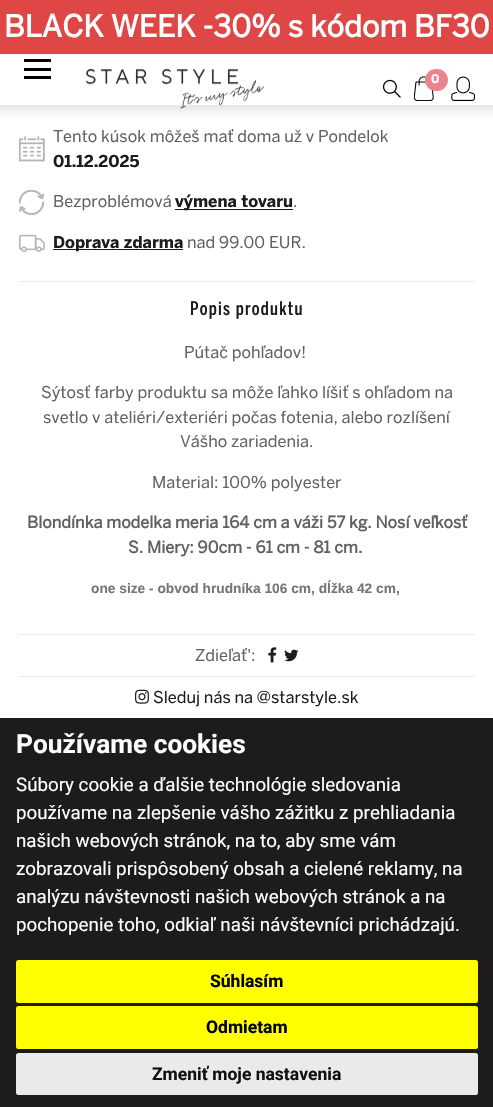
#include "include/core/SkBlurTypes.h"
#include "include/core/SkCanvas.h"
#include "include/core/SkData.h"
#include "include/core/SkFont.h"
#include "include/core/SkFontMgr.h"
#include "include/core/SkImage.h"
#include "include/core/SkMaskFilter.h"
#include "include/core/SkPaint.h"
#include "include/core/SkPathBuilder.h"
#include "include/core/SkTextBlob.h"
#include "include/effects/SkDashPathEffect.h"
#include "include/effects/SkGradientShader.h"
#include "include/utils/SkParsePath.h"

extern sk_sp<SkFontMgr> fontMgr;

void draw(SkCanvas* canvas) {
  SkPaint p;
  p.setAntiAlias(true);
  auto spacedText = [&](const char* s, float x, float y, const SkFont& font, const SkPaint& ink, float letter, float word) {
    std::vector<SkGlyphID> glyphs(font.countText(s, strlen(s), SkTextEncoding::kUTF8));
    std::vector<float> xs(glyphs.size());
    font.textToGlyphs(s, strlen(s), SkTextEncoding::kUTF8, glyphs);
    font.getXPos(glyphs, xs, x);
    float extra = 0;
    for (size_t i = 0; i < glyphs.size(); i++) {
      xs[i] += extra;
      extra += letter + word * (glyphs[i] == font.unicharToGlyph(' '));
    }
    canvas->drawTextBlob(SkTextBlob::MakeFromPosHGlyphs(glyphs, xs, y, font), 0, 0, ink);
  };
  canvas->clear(SK_ColorWHITE);
  p.setColor(SkColorSetRGB(223, 70, 70));
  canvas->drawRect(SkRect::MakeLTRB(0, 0, 493, 54), p);
  p.setColor(SK_ColorBLACK);
  canvas->drawRect(SkRect::MakeLTRB(24, 59, 51, 62), p);
  canvas->drawRect(SkRect::MakeLTRB(24, 68, 51, 71), p);
  canvas->drawRect(SkRect::MakeLTRB(24, 76, 51, 79), p);
  {
    const SkColor colors[] = {SkColorSetRGB(230, 230, 230), SK_ColorWHITE};
    const float stops[] = {0, 1};
    const SkPoint ends[] = {{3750, 105}, {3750, 118}};
    p.setShader(SkGradientShader::MakeLinear(ends, colors, stops, 2, SkTileMode::kClamp));
    p.setAlpha(255);
  }
  canvas->drawRect(SkRect::MakeLTRB(0, 105, 493, 117), p);
  canvas->drawImageRect(SkImages::DeferredFromEncodedData(SkData::MakeFromFileName("images/1.png")), SkRect::MakeLTRB(85, 69, 264, 109), SkSamplingOptions());
  canvas->drawImageRect(SkImages::DeferredFromEncodedData(SkData::MakeFromFileName("images/2.png")), SkRect::MakeLTRB(382, 79, 401, 98), SkSamplingOptions());
  canvas->drawImageRect(SkImages::DeferredFromEncodedData(SkData::MakeFromFileName("images/3.png")), SkRect::MakeLTRB(414, 76, 434, 101), SkSamplingOptions());
  p.setShader(nullptr);
  p.setColor(SkColorSetRGB(235, 132, 142));
  canvas->drawRoundRect(SkRect::MakeLTRB(425, 69, 448, 91), 11, 11, p);
  canvas->drawImageRect(SkImages::DeferredFromEncodedData(SkData::MakeFromFileName("images/4.png")), SkRect::MakeLTRB(451, 76, 475, 101), SkSamplingOptions());
  canvas->drawImageRect(SkImages::DeferredFromEncodedData(SkData::MakeFromFileName("images/5.png")), SkRect::MakeLTRB(19, 136, 45, 162), SkSamplingOptions());
  canvas->drawImageRect(SkImages::DeferredFromEncodedData(SkData::MakeFromFileName("images/6.png")), SkRect::MakeLTRB(19, 190, 45, 215), SkSamplingOptions());
  p.setColor(SkColorSetRGB(29, 27, 27));
  canvas->drawRect(SkRect::MakeLTRB(175, 209, 293, 210), p);
  canvas->drawImageRect(SkImages::DeferredFromEncodedData(SkData::MakeFromFileName("images/7.png")), SkRect::MakeLTRB(19, 234, 45, 253), SkSamplingOptions());
  canvas->drawRect(SkRect::MakeLTRB(53, 249, 183, 250), p);
  p.setColor(SkColorSetRGB(236, 236, 236));
  canvas->drawRect(SkRect::MakeLTRB(19, 281, 475, 282), p);
  canvas->drawRect(SkRect::MakeLTRB(19, 634, 475, 635), p);
  canvas->drawImageRect(SkImages::DeferredFromEncodedData(SkData::MakeFromFileName("images/8.png")), SkRect::MakeLTRB(268, 647, 277, 663), SkSamplingOptions());
  canvas->drawImageRect(SkImages::DeferredFromEncodedData(SkData::MakeFromFileName("images/9.png")), SkRect::MakeLTRB(284, 649, 299, 662), SkSamplingOptions());
  canvas->drawRect(SkRect::MakeLTRB(19, 676, 475, 677), p);
  canvas->drawImageRect(SkImages::DeferredFromEncodedData(SkData::MakeFromFileName("images/10.png")), SkRect::MakeLTRB(135, 689, 149, 704), SkSamplingOptions());
  p.setColor(SkColorSetRGB(29, 27, 27));
  canvas->drawRect(SkRect::MakeLTRB(0, 718, 493, 1107), p);
  p.setColor(SkColorSetRGB(255, 255, 0));
  canvas->drawRoundRect(SkRect::MakeLTRB(16, 960, 478, 1003), 2.5f, 2.5f, p);
  canvas->drawRoundRect(SkRect::MakeLTRB(16, 1006, 478, 1049), 2.5f, 2.5f, p);
  p.setColor(SkColorSetRGB(234, 234, 234));
  canvas->drawRoundRect(SkRect::MakeLTRB(16, 1053, 478, 1095), 2.5f, 2.5f, p);
  SkFont font1(fontMgr->matchFamilyStyle("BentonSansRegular", SkFontStyle::Bold()), 30);
  font1.setSubpixel(true);
  p.setColor(SK_ColorWHITE);
  canvas->drawString("BLACK WEEK -30% s kódom BF30", 4, 37, font1, p);
  SkFont font2(fontMgr->matchFamilyStyle("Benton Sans", SkFontStyle::Bold()), 12);
  font2.setSubpixel(true);
  canvas->drawString("0", 431, 83, font2, p);
  SkFont font3(fontMgr->matchFamilyStyle("BentonSansRegular", SkFontStyle::Normal()), 16.25f);
  font3.setSubpixel(true);
  p.setColor(SkColorSetRGB(97, 97, 97));
  canvas->drawString("Tento kúsok môžeš mať doma už v Pondelok", 53, 142, font3, p);
  SkFont font4(fontMgr->matchFamilyStyle("Benton Sans", SkFontStyle::Bold()), 16.25f);
  font4.setSubpixel(true);
  p.setColor(SkColorSetRGB(29, 27, 27));
  canvas->drawString("01.12.2025", 53, 167, font4, p);
  p.setColor(SkColorSetRGB(97, 97, 97));
  canvas->drawString("Bezproblémová", 53, 207, font3, p);
  p.setColor(SkColorSetRGB(29, 27, 27));
  canvas->drawString("výmena tovaru", 175, 207, font4, p);
  p.setColor(SkColorSetRGB(97, 97, 97));
  canvas->drawString(".", 293, 207, font3, p);
  p.setColor(SkColorSetRGB(29, 27, 27));
  canvas->drawString("Doprava zdarma", 53, 248, font4, p);
  p.setColor(SkColorSetRGB(97, 97, 97));
  canvas->drawString("nad 99.00 EUR.", 187, 248, font3, p);
  SkFont font5(fontMgr->matchFamilyStyle("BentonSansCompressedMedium", SkFontStyle(500, SkFontStyle::kNormal_Width, SkFontStyle::kUpright_Slant)), 18.5f);
  font5.setSubpixel(true);
  p.setColor(SkColorSetRGB(29, 27, 27));
  spacedText("Popis produktu", 190, 315, font5, p, 1.25f, 0);
  p.setColor(SkColorSetRGB(97, 97, 97));
  canvas->drawString("Pútač pohľadov!", 184, 358, font3, p);
  canvas->drawString("Sýtosť farby produktu sa môže ľahko líšiť s ohľadom na", 41, 398, font3, p);
  canvas->drawString("svetlo v ateliéri/exteriéri počas fotenia, alebo rozlíšení", 43, 423, font3, p);
  canvas->drawString("Vášho zariadenia.", 180, 447, font3, p);
  canvas->drawString("Material: 100% polyester", 152, 488, font3, p);
  SkFont font6(fontMgr->matchFamilyStyle("BentonSansRegular", SkFontStyle::Bold()), 16.25f);
  font6.setSubpixel(true);
  canvas->drawString("Blondínka modelka meria 164 cm a váži 57 kg. Nosí veľkosť", 27, 528, font6, p);
  canvas->drawString("S. Miery: 90cm - 61 cm - 81 cm.", 128, 553, font6, p);
  SkFont font7(fontMgr->matchFamilyStyle("Liberation Sans", SkFontStyle::Bold()), 13.75f);
  font7.setSubpixel(true);
  p.setColor(SkColorSetRGB(113, 118, 124));
  canvas->drawString("one size - obvod hrudníka 106 cm, dĺžka 42 cm,", 91, 593, font7, p);
  p.setColor(SkColorSetRGB(97, 97, 97));
  canvas->drawString("Zdieľať':", 195, 661, font3, p);
  p.setColor(SkColorSetRGB(29, 27, 27));
  canvas->drawString("Sleduj nás na @starstyle.sk", 153, 703, font3, p);
  SkFont font8(fontMgr->matchFamilyStyle("Roboto", SkFontStyle::Bold()), 26.25f);
  font8.setSubpixel(true);
  p.setColor(SK_ColorWHITE);
  canvas->drawString("Používame cookies", 16, 753, font8, p);
  SkFont font9(fontMgr->matchFamilyStyle("Roboto", SkFontStyle::Normal()), 18.75f);
  font9.setSubpixel(true);
  canvas->drawString("Súbory cookie a ďalšie technológie sledovania", 16, 791, font9, p);
  canvas->drawString("používame na zlepšenie vášho zážitku z prehliadania", 16, 819, font9, p);
  canvas->drawString("našich webových stránok, na to, aby sme vám", 16, 847, font9, p);
  canvas->drawString("zobrazovali prispôsobený obsah a cielené reklamy, na", 16, 875, font9, p);
  canvas->drawString("analýzu návštevnosti našich webových stránok a na", 16, 903, font9, p);
  canvas->drawString("pochopenie toho, odkiaľ naši návštevníci prichádzajú.", 16, 931, font9, p);
  SkFont font10(fontMgr->matchFamilyStyle("Roboto", SkFontStyle::Bold()), 17.5f);
  font10.setSubpixel(true);
  p.setColor(SK_ColorBLACK);
  canvas->drawString("Súhlasím", 210, 987, font10, p);
  canvas->drawString("Odmietam", 206, 1033, font10, p);
  p.setColor(SkColorSetRGB(17, 17, 17));
  canvas->drawString("Zmeniť moje nastavenia", 152, 1080, font10, p);
}
